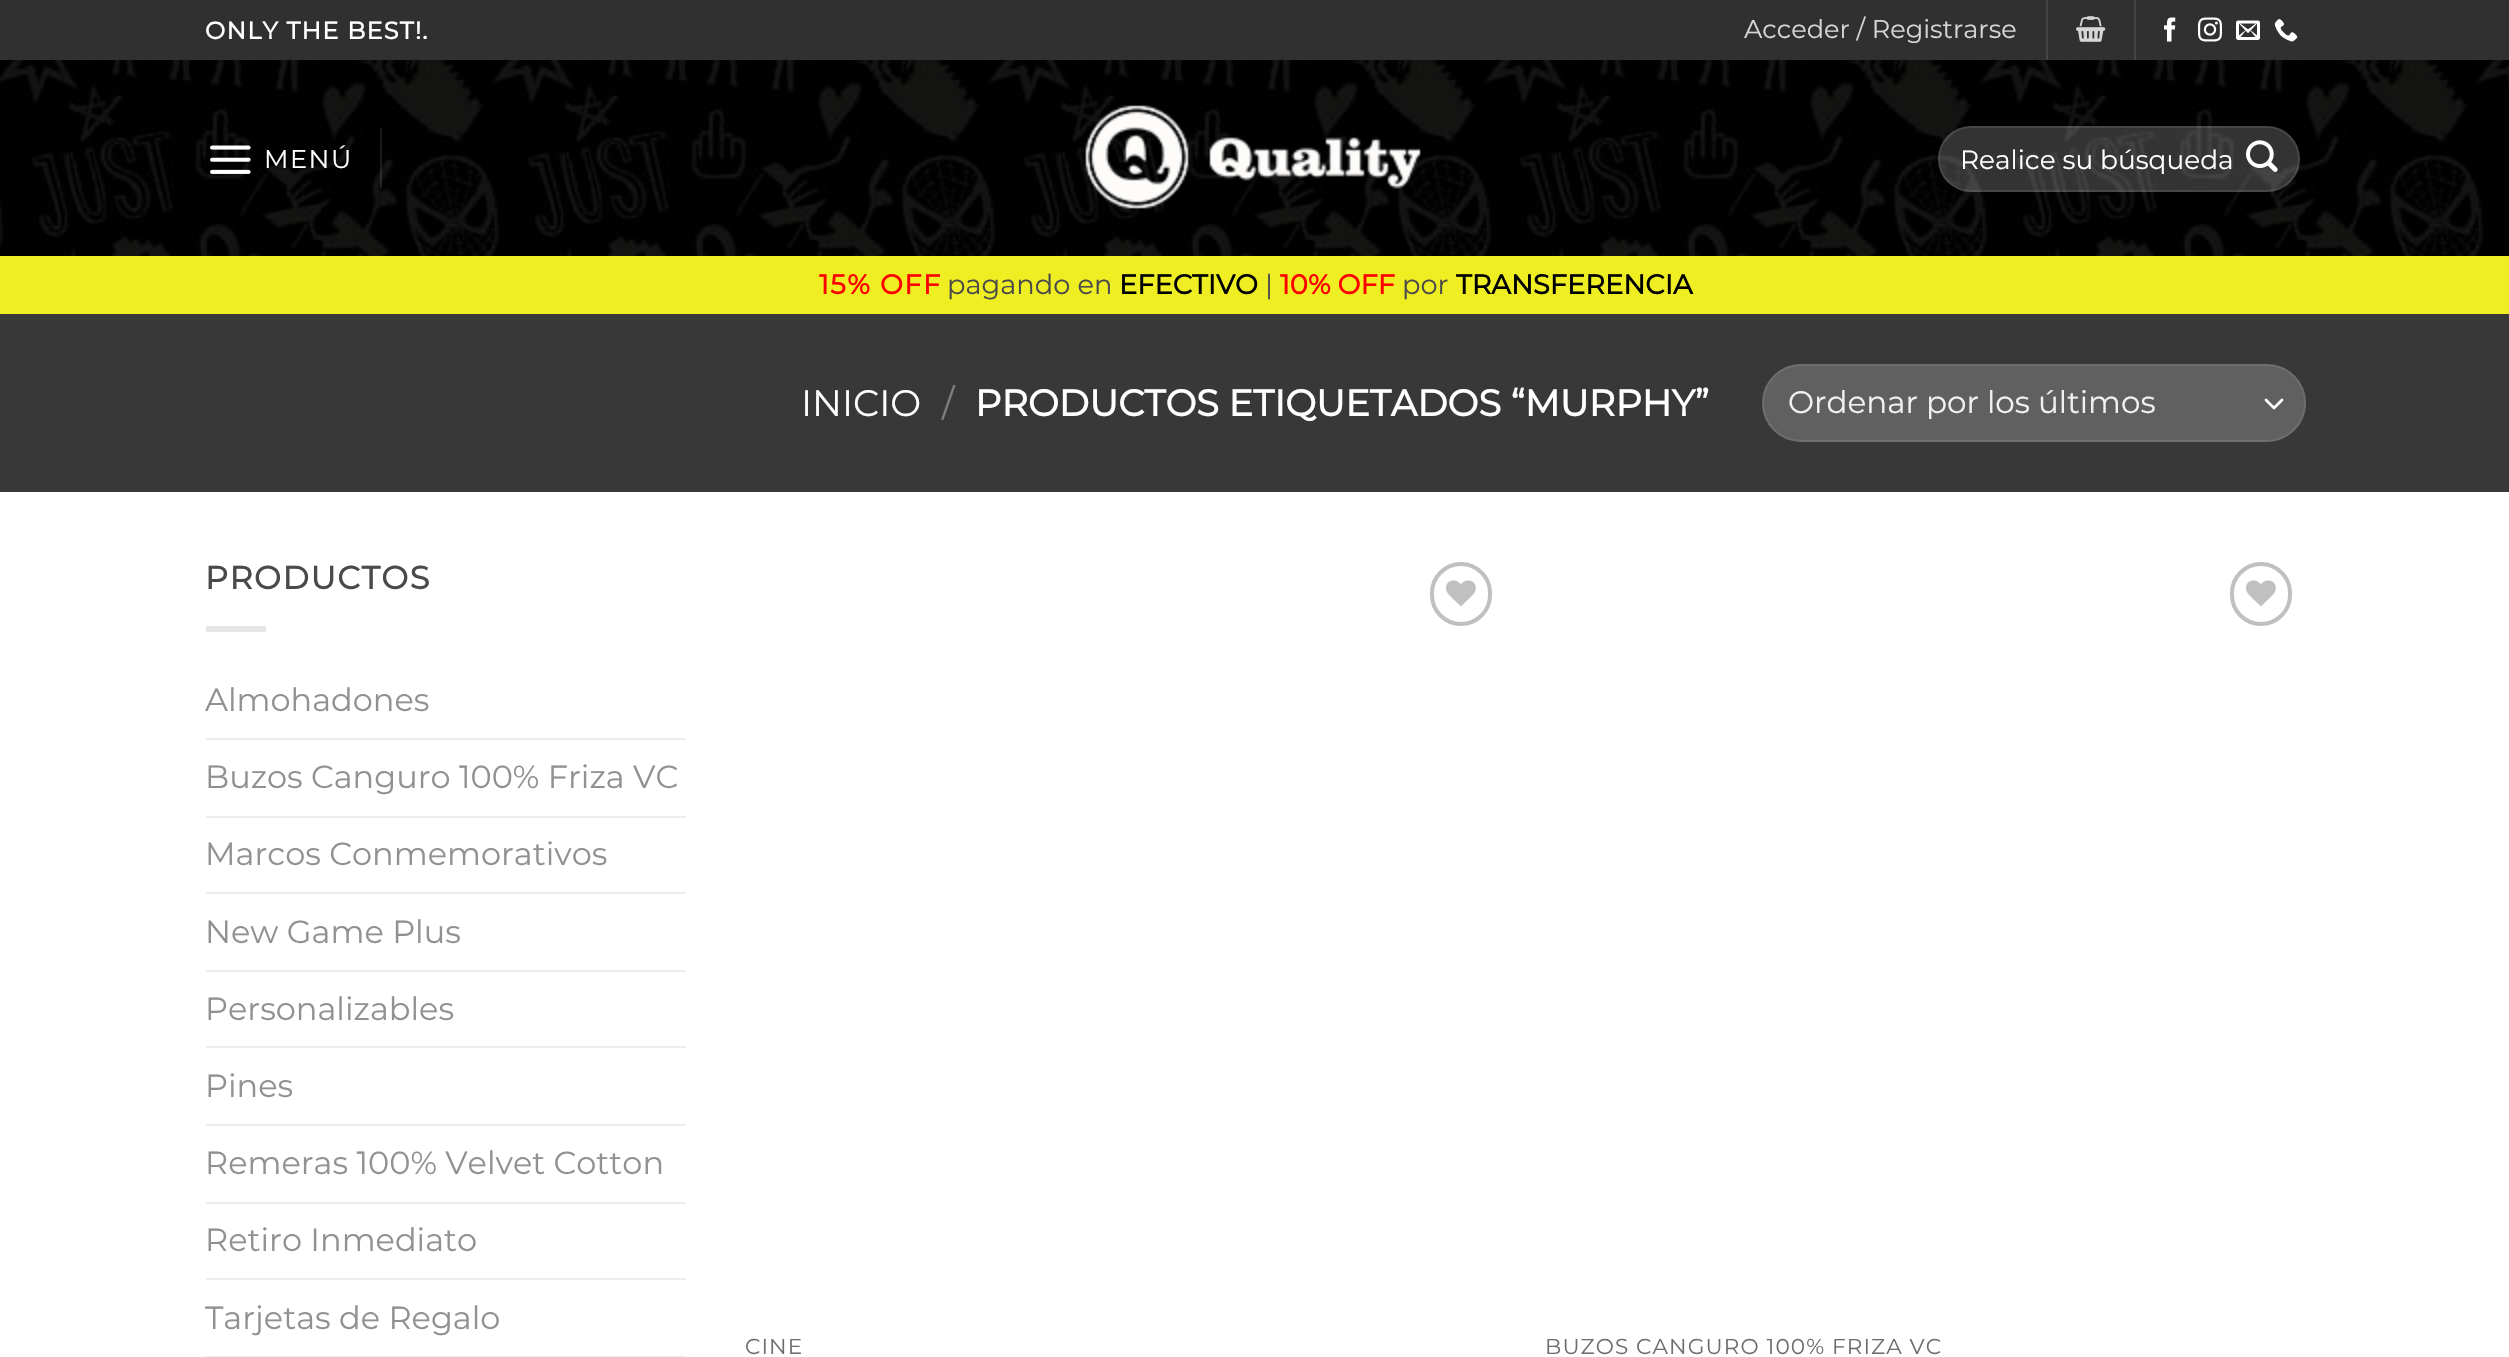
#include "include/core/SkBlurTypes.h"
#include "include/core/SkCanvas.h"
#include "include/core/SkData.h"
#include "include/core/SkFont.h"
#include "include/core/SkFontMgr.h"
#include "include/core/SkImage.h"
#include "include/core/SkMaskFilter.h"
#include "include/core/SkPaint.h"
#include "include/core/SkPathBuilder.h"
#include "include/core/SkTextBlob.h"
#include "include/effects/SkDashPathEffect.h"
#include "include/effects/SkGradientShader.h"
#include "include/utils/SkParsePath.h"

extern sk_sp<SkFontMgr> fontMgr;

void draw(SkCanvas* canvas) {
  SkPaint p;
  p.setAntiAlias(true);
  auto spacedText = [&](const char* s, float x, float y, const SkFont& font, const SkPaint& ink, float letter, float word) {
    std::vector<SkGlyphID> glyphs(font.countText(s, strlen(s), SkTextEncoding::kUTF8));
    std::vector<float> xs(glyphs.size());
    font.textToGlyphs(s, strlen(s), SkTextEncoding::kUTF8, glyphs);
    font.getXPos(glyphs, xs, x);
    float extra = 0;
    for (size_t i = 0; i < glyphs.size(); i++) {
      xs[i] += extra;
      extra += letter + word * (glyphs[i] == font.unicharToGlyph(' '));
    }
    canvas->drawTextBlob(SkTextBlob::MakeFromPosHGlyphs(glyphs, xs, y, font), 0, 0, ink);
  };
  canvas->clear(SK_ColorWHITE);
  p.setColor(SkColorSetRGB(48, 48, 48));
  canvas->drawRect(SkRect::MakeLTRB(0, 0, 2509, 60), p);
  p.setColor(SkColorSetRGB(69, 69, 69));
  canvas->drawRect(SkRect::MakeLTRB(2046, 0, 2048, 60), p);
  canvas->drawImageRect(SkImages::DeferredFromEncodedData(SkData::MakeFromFileName("images/1.png")), SkRect::MakeLTRB(2076, 16, 2106, 42), SkSamplingOptions());
  canvas->drawRect(SkRect::MakeLTRB(2134, 0, 2136, 60), p);
  canvas->drawImageRect(SkImages::DeferredFromEncodedData(SkData::MakeFromFileName("images/2.png")), SkRect::MakeLTRB(2164, 17, 2176, 42), SkSamplingOptions());
  canvas->drawImageRect(SkImages::DeferredFromEncodedData(SkData::MakeFromFileName("images/3.png")), SkRect::MakeLTRB(2198, 17, 2222, 42), SkSamplingOptions());
  canvas->drawImageRect(SkImages::DeferredFromEncodedData(SkData::MakeFromFileName("images/4.png")), SkRect::MakeLTRB(2236, 20, 2260, 40), SkSamplingOptions());
  canvas->drawImageRect(SkImages::DeferredFromEncodedData(SkData::MakeFromFileName("images/5.png")), SkRect::MakeLTRB(2274, 19, 2298, 42), SkSamplingOptions());
  canvas->drawImageRect(SkImages::DeferredFromEncodedData(SkData::MakeFromFileName("images/6.png")), SkRect::MakeLTRB(0, 60, 2509, 256), SkSamplingOptions());
  canvas->drawImageRect(SkImages::DeferredFromEncodedData(SkData::MakeFromFileName("images/7.png")), SkRect::MakeLTRB(210, 145, 251, 174), SkSamplingOptions());
  p.setColor(SkColorSetARGB(26, 255, 255, 255));
  canvas->drawRect(SkRect::MakeLTRB(380, 128, 382, 188), p);
  canvas->drawImageRect(SkImages::DeferredFromEncodedData(SkData::MakeFromFileName("images/8.png")), SkRect::MakeLTRB(1085, 105, 1421, 209), SkSamplingOptions());
  p.setColor(SkColorSetARGB(51, 255, 255, 255));
  canvas->drawRoundRect(SkRect::MakeLTRB(1938, 126, 2300, 192), 33, 33, p);
  p.setStyle(SkPaint::kStroke_Style);
  p.setStrokeWidth(2);
  p.setColor(SkColorSetARGB(23, 255, 255, 255));
  canvas->drawRoundRect(SkRect::MakeLTRB(1939, 127, 2299, 191), 32, 32, p);
  canvas->drawImageRect(SkImages::DeferredFromEncodedData(SkData::MakeFromFileName("images/9.png")), SkRect::MakeLTRB(2246, 140, 2278, 172), SkSamplingOptions());
  p.setStyle(SkPaint::kFill_Style);
  p.setColor(SkColorSetRGB(238, 238, 34));
  canvas->drawRect(SkRect::MakeLTRB(0, 256, 2509, 314), p);
  p.setColor(SkColorSetRGB(56, 56, 56));
  canvas->drawRect(SkRect::MakeLTRB(0, 314, 2509, 492), p);
  p.setColor(SkColorSetRGB(96, 96, 96));
  canvas->drawRoundRect(SkRect::MakeLTRB(1762, 364, 2306, 442), 39, 39, p);
  p.setStyle(SkPaint::kStroke_Style);
  p.setStrokeWidth(2.7f);
  p.setStrokeCap(SkPaint::kRound_Cap);
  p.setStrokeJoin(SkPaint::kRound_Join);
  p.setColor(SK_ColorWHITE);
  canvas->drawPath(SkPathBuilder().moveTo(2266, 400).lineTo(2274, 408).lineTo(2282, 400).detach(), p);
  p.setStrokeWidth(2);
  p.setStrokeCap(SkPaint::kButt_Cap);
  p.setStrokeJoin(SkPaint::kMiter_Join);
  p.setColor(SkColorSetARGB(23, 255, 255, 255));
  canvas->drawRoundRect(SkRect::MakeLTRB(1763, 365, 2305, 441), 38, 38, p);
  p.setStyle(SkPaint::kFill_Style);
  p.setColor(SkColorSetRGB(230, 230, 230));
  canvas->drawRect(SkRect::MakeLTRB(206, 626, 266, 632), p);
  p.setColor(SkColorSetRGB(236, 236, 236));
  canvas->drawRect(SkRect::MakeLTRB(206, 738, 686, 740), p);
  canvas->drawRect(SkRect::MakeLTRB(206, 816, 686, 818), p);
  canvas->drawRect(SkRect::MakeLTRB(206, 892, 686, 894), p);
  canvas->drawRect(SkRect::MakeLTRB(206, 970, 686, 972), p);
  canvas->drawRect(SkRect::MakeLTRB(206, 1046, 686, 1048), p);
  canvas->drawRect(SkRect::MakeLTRB(206, 1124, 686, 1126), p);
  canvas->drawRect(SkRect::MakeLTRB(206, 1202, 686, 1204), p);
  canvas->drawRect(SkRect::MakeLTRB(206, 1278, 686, 1280), p);
  canvas->drawRect(SkRect::MakeLTRB(206, 1356, 686, 1357), p);
  p.setStyle(SkPaint::kStroke_Style);
  p.setStrokeWidth(4);
  p.setColor(SkColorSetRGB(192, 192, 192));
  canvas->drawRoundRect(SkRect::MakeLTRB(1432, 564, 1490, 624), 29, 29, p);
  canvas->drawImageRect(SkImages::DeferredFromEncodedData(SkData::MakeFromFileName("images/10.png")), SkRect::MakeLTRB(1446, 580, 1476, 606), SkSamplingOptions());
  canvas->drawRoundRect(SkRect::MakeLTRB(2232, 564, 2290, 624), 29, 29, p);
  canvas->drawImageRect(SkImages::DeferredFromEncodedData(SkData::MakeFromFileName("images/10.png")), SkRect::MakeLTRB(2246, 580, 2276, 606), SkSamplingOptions());
  SkFont font1(fontMgr->matchFamilyStyle("Montserrat", SkFontStyle::Bold()), 24);
  font1.setSubpixel(true);
  p.setStyle(SkPaint::kFill_Style);
  p.setColor(SK_ColorWHITE);
  spacedText("ONLY THE BEST!.", 205, 39, font1, p, 1.25f, 0);
  SkFont font2(fontMgr->matchFamilyStyle("Montserrat", SkFontStyle(100, SkFontStyle::kNormal_Width, SkFontStyle::kUpright_Slant)), 25.6f);
  font2.setSubpixel(true);
  p.setColor(SkColorSetRGB(214, 214, 214));
  canvas->drawString("Acceder / Registrarse", 1744, 38, font2, p);
  p.setColor(SK_ColorWHITE);
  spacedText("MENÚ", 264, 168, font2, p, 1.5f, 0);
  SkFont font3(fontMgr->matchFamilyStyle("Montserrat", SkFontStyle(100, SkFontStyle::kNormal_Width, SkFontStyle::kUpright_Slant)), 26.4f);
  font3.setSubpixel(true);
  canvas->drawString("Realice su búsqueda", 1960, 169, font3, p);
  SkFont font4(fontMgr->matchFamilyStyle("Montserrat", SkFontStyle::Bold()), 27.25f);
  font4.setSubpixel(true);
  p.setColor(SkColorSetRGB(255, 0, 0));
  spacedText("15% OFF", 819, 294, font4, p, 1.5f, 0);
  SkFont font5(fontMgr->matchFamilyStyle("Montserrat", SkFontStyle(100, SkFontStyle::kNormal_Width, SkFontStyle::kUpright_Slant)), 27.25f);
  font5.setSubpixel(true);
  p.setColor(SkColorSetRGB(74, 74, 74));
  canvas->drawString("pagando en", 947, 294, font5, p);
  p.setColor(SK_ColorBLACK);
  canvas->drawString("EFECTIVO", 1119, 294, font4, p);
  p.setColor(SkColorSetRGB(74, 74, 74));
  canvas->drawString("|", 1265, 294, font5, p);
  p.setColor(SkColorSetRGB(255, 0, 0));
  canvas->drawString("10% OFF", 1280, 294, font4, p);
  p.setColor(SkColorSetRGB(74, 74, 74));
  canvas->drawString("por", 1402, 294, font5, p);
  p.setColor(SK_ColorBLACK);
  canvas->drawString("TRANSFERENCIA", 1456, 294, font4, p);
  SkFont font6(fontMgr->matchFamilyStyle("Montserrat", SkFontStyle(100, SkFontStyle::kNormal_Width, SkFontStyle::kUpright_Slant)), 36.75f);
  font6.setSubpixel(true);
  p.setColor(SK_ColorWHITE);
  canvas->drawString("INICIO", 801, 416, font6, p);
  p.setColor(SkColorSetRGB(126, 126, 126));
  canvas->drawString("/", 942, 416, font6, p);
  SkFont font7(fontMgr->matchFamilyStyle("Montserrat", SkFontStyle::Bold()), 36.75f);
  font7.setSubpixel(true);
  p.setColor(SK_ColorWHITE);
  canvas->drawString("PRODUCTOS ETIQUETADOS “MURPHY”", 975, 416, font7, p);
  SkFont font8(fontMgr->matchFamilyStyle("Montserrat", SkFontStyle(100, SkFontStyle::kNormal_Width, SkFontStyle::kUpright_Slant)), 31);
  font8.setSubpixel(true);
  p.setColor(SkColorSetRGB(241, 241, 241));
  canvas->drawString("Ordenar por los últimos", 1788, 413, font8, p);
  SkFont font9(fontMgr->matchFamilyStyle("Montserrat", SkFontStyle::Bold()), 32);
  font9.setSubpixel(true);
  p.setColor(SkColorSetRGB(74, 74, 74));
  spacedText("PRODUCTOS", 205, 589, font9, p, 1.5f, 0);
  SkFont font10(fontMgr->matchFamilyStyle("Montserrat", SkFontStyle(100, SkFontStyle::kNormal_Width, SkFontStyle::kUpright_Slant)), 32);
  font10.setSubpixel(true);
  p.setColor(SkColorSetRGB(145, 145, 145));
  canvas->drawString("Almohadones", 205, 711, font10, p);
  canvas->drawString("Buzos Canguro 100% Friza VC", 205, 788, font10, p);
  canvas->drawString("Marcos Conmemorativos", 205, 865, font10, p);
  canvas->drawString("New Game Plus", 205, 943, font10, p);
  canvas->drawString("Personalizables", 205, 1020, font10, p);
  canvas->drawString("Pines", 205, 1097, font10, p);
  canvas->drawString("Remeras 100% Velvet Cotton", 205, 1174, font10, p);
  canvas->drawString("Retiro Inmediato", 205, 1251, font10, p);
  canvas->drawString("Tarjetas de Regalo", 205, 1329, font10, p);
  SkFont font11(fontMgr->matchFamilyStyle("Montserrat", SkFontStyle(100, SkFontStyle::kNormal_Width, SkFontStyle::kUpright_Slant)), 21.6f);
  font11.setSubpixel(true);
  p.setColor(SkColorSetRGB(110, 110, 110));
  spacedText("CINE", 745, 1354, font11, p, 1.1f, 0);
  spacedText("BUZOS CANGURO 100% FRIZA VC", 1545, 1354, font11, p, 1.1f, 0);
}
